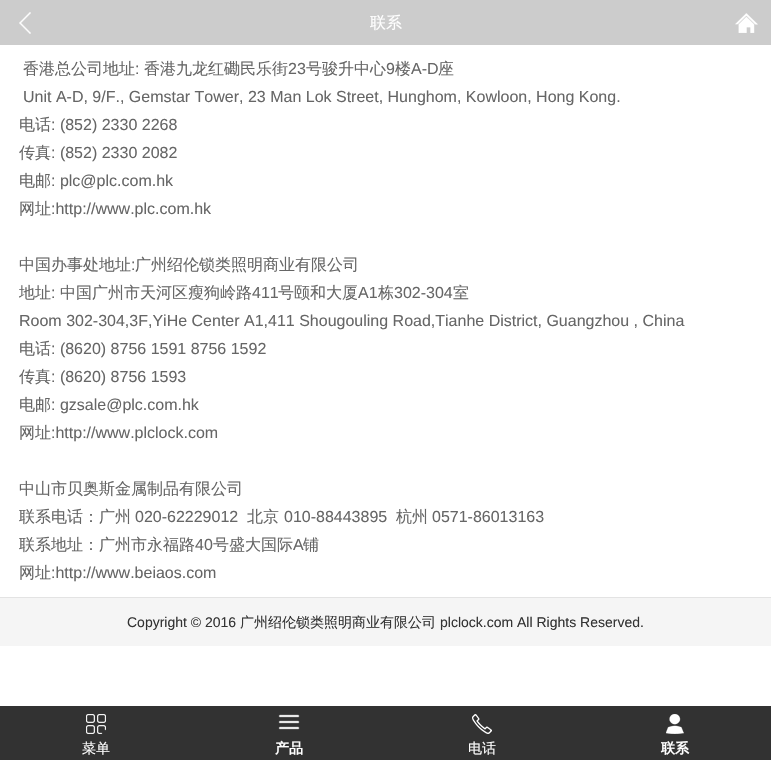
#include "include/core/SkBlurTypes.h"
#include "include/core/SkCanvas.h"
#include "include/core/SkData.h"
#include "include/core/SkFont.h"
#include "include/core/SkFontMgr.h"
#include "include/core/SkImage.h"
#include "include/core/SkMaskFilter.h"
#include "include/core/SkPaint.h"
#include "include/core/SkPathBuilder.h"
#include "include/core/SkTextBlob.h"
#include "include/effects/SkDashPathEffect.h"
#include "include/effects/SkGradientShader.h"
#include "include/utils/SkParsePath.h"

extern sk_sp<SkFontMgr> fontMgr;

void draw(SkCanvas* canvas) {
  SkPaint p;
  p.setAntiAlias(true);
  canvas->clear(SK_ColorWHITE);
  p.setColor(SkColorSetRGB(204, 204, 204));
  canvas->drawRect(SkRect::MakeLTRB(0, 0, 771, 45), p);
  canvas->drawImageRect(SkImages::DeferredFromEncodedData(SkData::MakeFromFileName("images/1.png")), SkRect::MakeLTRB(19, 12, 31, 34), SkSamplingOptions());
  canvas->drawImageRect(SkImages::DeferredFromEncodedData(SkData::MakeFromFileName("images/2.png")), SkRect::MakeLTRB(735, 13, 758, 33), SkSamplingOptions());
  p.setColor(SkColorSetRGB(245, 245, 245));
  canvas->drawRect(SkRect::MakeLTRB(0, 598, 771, 646), p);
  p.setColor(SkColorSetRGB(227, 227, 227));
  canvas->drawRect(SkRect::MakeLTRB(0, 597, 771, 598), p);
  p.setColor(SkColorSetRGB(50, 50, 50));
  canvas->drawRect(SkRect::MakeLTRB(0, 706, 771, 760), p);
  canvas->drawImageRect(SkImages::DeferredFromEncodedData(SkData::MakeFromFileName("images/3.png")), SkRect::MakeLTRB(86, 714, 106, 734), SkSamplingOptions());
  canvas->drawImageRect(SkImages::DeferredFromEncodedData(SkData::MakeFromFileName("images/4.png")), SkRect::MakeLTRB(278, 714, 300, 730), SkSamplingOptions());
  canvas->drawImageRect(SkImages::DeferredFromEncodedData(SkData::MakeFromFileName("images/5.png")), SkRect::MakeLTRB(472, 714, 492, 734), SkSamplingOptions());
  canvas->drawImageRect(SkImages::DeferredFromEncodedData(SkData::MakeFromFileName("images/6.png")), SkRect::MakeLTRB(666, 714, 684, 734), SkSamplingOptions());
  SkFont font1(fontMgr->matchFamilyStyle("WenQuanYi Zen Hei", SkFontStyle(500, SkFontStyle::kNormal_Width, SkFontStyle::kUpright_Slant)), 16);
  font1.setSubpixel(true);
  p.setColor(SK_ColorWHITE);
  canvas->drawString("联系", 370, 28, font1, p);
  p.setColor(SkColorSetRGB(102, 102, 102));
  canvas->drawString("香港总公司地址", 23, 74, font1, p);
  SkFont font2(fontMgr->matchFamilyStyle("Liberation Sans", SkFontStyle::Normal()), 16);
  font2.setSubpixel(true);
  canvas->drawString(":", 135, 74, font2, p);
  canvas->drawString("香港九龙红磡民乐街", 144, 74, font1, p);
  canvas->drawString("23", 288, 74, font2, p);
  canvas->drawString("号骏升中心", 306, 74, font1, p);
  canvas->drawString("9", 386, 74, font2, p);
  canvas->drawString("楼", 395, 74, font1, p);
  canvas->drawString("A-D", 411, 74, font2, p);
  canvas->drawString("座", 438, 74, font1, p);
  canvas->drawString("Unit A-D, 9/F., Gemstar Tower, 23 Man Lok Street, Hunghom, Kowloon, Hong Kong.", 23, 102, font2, p);
  canvas->drawString("电话", 19, 130, font1, p);
  canvas->drawString(": (852) 2330 2268", 51, 130, font2, p);
  canvas->drawString("传真", 19, 158, font1, p);
  canvas->drawString(": (852) 2330 2082", 51, 158, font2, p);
  canvas->drawString("电邮", 19, 186, font1, p);
  canvas->drawString(": plc@plc.com.hk", 51, 186, font2, p);
  canvas->drawString("网址", 19, 214, font1, p);
  canvas->drawString(":http://www.plc.com.hk", 51, 214, font2, p);
  canvas->drawString("中国办事处地址", 19, 270, font1, p);
  canvas->drawString(":", 131, 270, font2, p);
  canvas->drawString("广州绍伦锁类照明商业有限公司", 135, 270, font1, p);
  canvas->drawString("地址", 19, 298, font1, p);
  canvas->drawString(":", 51, 298, font2, p);
  canvas->drawString("中国广州市天河区瘦狗岭路", 60, 298, font1, p);
  canvas->drawString("411", 252, 298, font2, p);
  canvas->drawString("号颐和大厦", 278, 298, font1, p);
  canvas->drawString("A1", 358, 298, font2, p);
  canvas->drawString("栋", 378, 298, font1, p);
  canvas->drawString("302-304", 394, 298, font2, p);
  canvas->drawString("室", 453, 298, font1, p);
  canvas->drawString("Room 302-304,3F,YiHe Center A1,411 Shougouling Road,Tianhe District, Guangzhou , China", 19, 326, font2, p);
  canvas->drawString("电话", 19, 354, font1, p);
  canvas->drawString(": (8620) 8756 1591 8756 1592", 51, 354, font2, p);
  canvas->drawString("传真", 19, 382, font1, p);
  canvas->drawString(": (8620) 8756 1593", 51, 382, font2, p);
  canvas->drawString("电邮", 19, 410, font1, p);
  canvas->drawString(": gzsale@plc.com.hk", 51, 410, font2, p);
  canvas->drawString("网址", 19, 438, font1, p);
  canvas->drawString(":http://www.plclock.com", 51, 438, font2, p);
  canvas->drawString("中山市贝奥斯金属制品有限公司", 19, 494, font1, p);
  canvas->drawString("联系电话：广州", 19, 522, font1, p);
  canvas->drawString("020-62229012", 135, 522, font2, p);
  canvas->drawString("北京", 247, 522, font1, p);
  canvas->drawString("010-88443895", 284, 522, font2, p);
  canvas->drawString("杭州", 396, 522, font1, p);
  canvas->drawString("0571-86013163", 432, 522, font2, p);
  canvas->drawString("联系地址：广州市永福路", 19, 550, font1, p);
  canvas->drawString("40", 195, 550, font2, p);
  canvas->drawString("号盛大国际", 213, 550, font1, p);
  canvas->drawString("A", 293, 550, font2, p);
  canvas->drawString("铺", 303, 550, font1, p);
  canvas->drawString("网址", 19, 578, font1, p);
  canvas->drawString(":http://www.beiaos.com", 51, 578, font2, p);
  SkFont font3(fontMgr->matchFamilyStyle("Liberation Sans", SkFontStyle::Normal()), 14);
  font3.setSubpixel(true);
  p.setColor(SkColorSetRGB(51, 51, 51));
  canvas->drawString("Copyright © 2016", 127, 627, font3, p);
  SkFont font4(fontMgr->matchFamilyStyle("WenQuanYi Zen Hei", SkFontStyle(500, SkFontStyle::kNormal_Width, SkFontStyle::kUpright_Slant)), 14);
  font4.setSubpixel(true);
  canvas->drawString("广州绍伦锁类照明商业有限公司", 240, 627, font4, p);
  canvas->drawString("plclock.com All Rights Reserved.", 440, 627, font3, p);
  p.setColor(SK_ColorWHITE);
  canvas->drawString("菜单", 82, 753, font4, p);
  SkFont font5(fontMgr->matchFamilyStyle("WenQuanYi Zen Hei", SkFontStyle::Bold()), 14);
  font5.setSubpixel(true);
  canvas->drawString("产品", 275, 753, font5, p);
  canvas->drawString("电话", 468, 753, font4, p);
  canvas->drawString("联系", 661, 753, font5, p);
}
